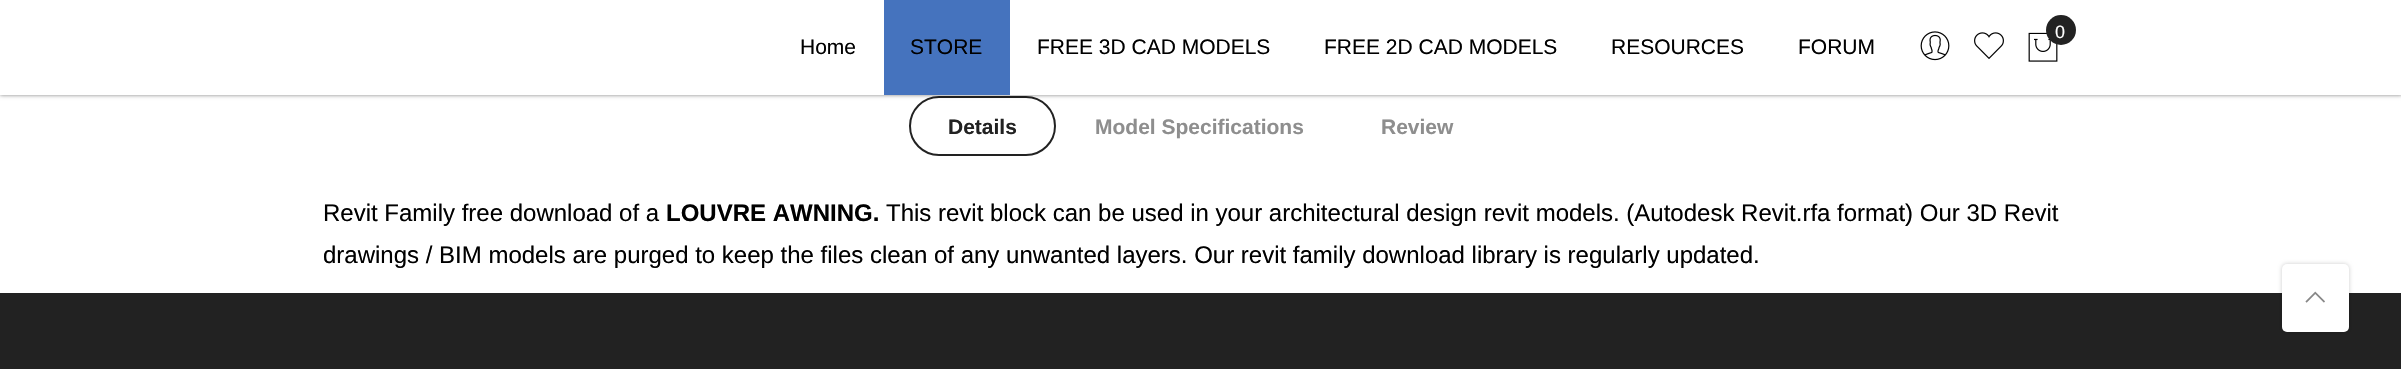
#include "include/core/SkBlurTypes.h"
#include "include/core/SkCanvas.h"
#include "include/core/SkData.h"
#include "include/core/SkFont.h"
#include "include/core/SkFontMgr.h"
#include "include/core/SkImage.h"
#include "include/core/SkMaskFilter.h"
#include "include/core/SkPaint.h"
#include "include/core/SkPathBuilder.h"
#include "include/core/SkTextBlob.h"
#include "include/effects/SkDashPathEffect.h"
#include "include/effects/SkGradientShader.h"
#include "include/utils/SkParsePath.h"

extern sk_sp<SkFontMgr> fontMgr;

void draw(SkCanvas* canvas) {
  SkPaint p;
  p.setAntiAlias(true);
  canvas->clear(SK_ColorWHITE);
  p.setStyle(SkPaint::kStroke_Style);
  p.setStrokeWidth(2);
  p.setColor(SkColorSetRGB(34, 34, 34));
  canvas->drawRoundRect(SkRect::MakeLTRB(910, 97, 1055, 155), 29, 29, p);
  p.setStyle(SkPaint::kFill_Style);
  p.setColor(SkColorSetARGB(128, 0, 0, 0));
  p.setMaskFilter(SkMaskFilter::MakeBlur(kNormal_SkBlurStyle, 2));
  canvas->drawRect(SkRect::MakeLTRB(0, 0, 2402, 95), p);
  p.setMaskFilter(nullptr);
  p.setColor(SK_ColorWHITE);
  canvas->drawRect(SkRect::MakeLTRB(0, 0, 2401, 95), p);
  canvas->drawImageRect(SkImages::DeferredFromEncodedData(SkData::MakeFromFileName("images/1.png")), SkRect::MakeLTRB(1920, 31, 1950, 61), SkSamplingOptions());
  canvas->drawImageRect(SkImages::DeferredFromEncodedData(SkData::MakeFromFileName("images/2.png")), SkRect::MakeLTRB(1974, 32, 2004, 59), SkSamplingOptions());
  canvas->drawImageRect(SkImages::DeferredFromEncodedData(SkData::MakeFromFileName("images/3.png")), SkRect::MakeLTRB(2028, 32, 2058, 62), SkSamplingOptions());
  p.setColor(SkColorSetRGB(34, 34, 34));
  canvas->drawCircle(2061, 30, 15, p);
  p.setColor(SkColorSetRGB(69, 115, 190));
  canvas->drawRect(SkRect::MakeLTRB(884, 0, 1010, 95), p);
  p.setColor(SkColorSetRGB(34, 34, 34));
  canvas->drawRect(SkRect::MakeLTRB(0, 293, 2401, 369), p);
  p.setColor(SkColorSetARGB(51, 0, 0, 0));
  p.setMaskFilter(SkMaskFilter::MakeBlur(kNormal_SkBlurStyle, 2));
  canvas->drawRoundRect(SkRect::MakeLTRB(2282, 264, 2349, 332), 5, 5, p);
  p.setMaskFilter(nullptr);
  p.setColor(SK_ColorWHITE);
  canvas->drawRoundRect(SkRect::MakeLTRB(2282, 264, 2349, 332), 5, 5, p);
  canvas->drawImageRect(SkImages::DeferredFromEncodedData(SkData::MakeFromFileName("images/4.png")), SkRect::MakeLTRB(2305, 291, 2325, 303), SkSamplingOptions());
  SkFont font1(fontMgr->matchFamilyStyle("Liberation Sans", SkFontStyle::Normal()), 18);
  font1.setSubpixel(true);
  canvas->drawString("0", 2055, 38, font1, p);
  SkFont font2(fontMgr->matchFamilyStyle("Liberation Sans", SkFontStyle::Normal()), 21);
  font2.setSubpixel(true);
  p.setColor(SK_ColorBLACK);
  canvas->drawString("Home", 800, 54, font2, p);
  canvas->drawString("STORE", 910, 54, font2, p);
  canvas->drawString("FREE 3D CAD MODELS", 1037, 54, font2, p);
  canvas->drawString("FREE 2D CAD MODELS", 1324, 54, font2, p);
  canvas->drawString("RESOURCES", 1611, 54, font2, p);
  canvas->drawString("FORUM", 1798, 54, font2, p);
  SkFont font3(fontMgr->matchFamilyStyle("Liberation Sans", SkFontStyle::Bold()), 21);
  font3.setSubpixel(true);
  p.setColor(SkColorSetRGB(34, 34, 34));
  canvas->drawString("Details", 948, 134, font3, p);
  p.setColor(SkColorSetRGB(142, 142, 142));
  canvas->drawString("Model Specifications", 1095, 134, font3, p);
  canvas->drawString("Review", 1381, 134, font3, p);
  SkFont font4(fontMgr->matchFamilyStyle("Liberation Sans", SkFontStyle::Normal()), 24);
  font4.setSubpixel(true);
  p.setColor(SK_ColorBLACK);
  canvas->drawString("Revit Family free download of a", 323, 221, font4, p);
  SkFont font5(fontMgr->matchFamilyStyle("Liberation Sans", SkFontStyle::Bold()), 24);
  font5.setSubpixel(true);
  canvas->drawString("LOUVRE AWNING.", 666, 221, font5, p);
  canvas->drawString("This revit block can be used in your architectural design revit models. (Autodesk Revit.rfa format) Our 3D Revit", 886, 221, font4, p);
  canvas->drawString("drawings / BIM models are purged to keep the files clean of any unwanted layers. Our revit family download library is regularly updated.", 323, 263, font4, p);
}
